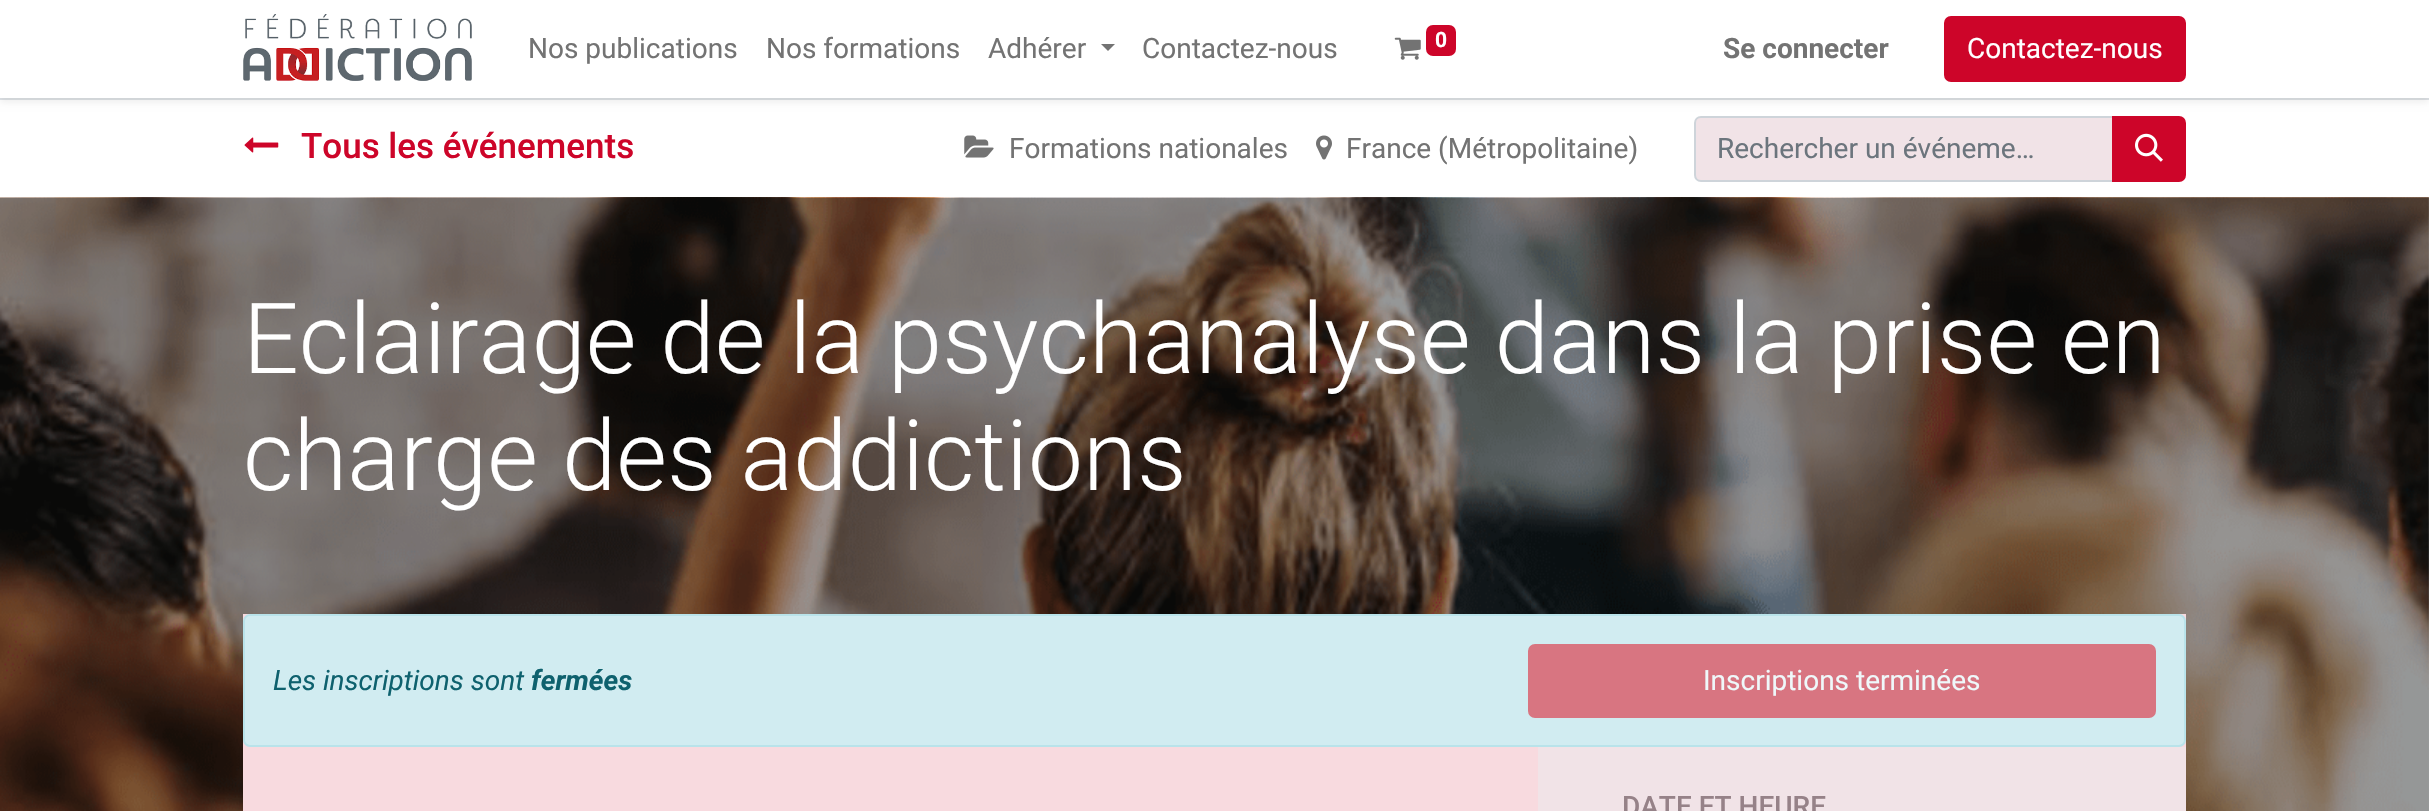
#include "include/core/SkBlurTypes.h"
#include "include/core/SkCanvas.h"
#include "include/core/SkData.h"
#include "include/core/SkFont.h"
#include "include/core/SkFontMgr.h"
#include "include/core/SkImage.h"
#include "include/core/SkMaskFilter.h"
#include "include/core/SkPaint.h"
#include "include/core/SkPathBuilder.h"
#include "include/core/SkTextBlob.h"
#include "include/effects/SkDashPathEffect.h"
#include "include/effects/SkGradientShader.h"
#include "include/utils/SkParsePath.h"

extern sk_sp<SkFontMgr> fontMgr;

void draw(SkCanvas* canvas) {
  SkPaint p;
  p.setAntiAlias(true);
  canvas->clear(SK_ColorWHITE);
  p.setColor(SkColorSetARGB(18, 0, 0, 0));
  p.setMaskFilter(SkMaskFilter::MakeBlur(kNormal_SkBlurStyle, 3.5f));
  canvas->drawRect(SkRect::MakeLTRB(0, 102, 2429, 201), p);
  p.setMaskFilter(nullptr);
  p.setColor(SK_ColorWHITE);
  canvas->drawRect(SkRect::MakeLTRB(0, 100, 2429, 198), p);
  p.setColor(SkColorSetRGB(222, 226, 230));
  canvas->drawRect(SkRect::MakeLTRB(0, 98, 2429, 100), p);
  p.setColor(SkColorSetARGB(18, 0, 0, 0));
  p.setMaskFilter(SkMaskFilter::MakeBlur(kNormal_SkBlurStyle, 3.5f));
  canvas->drawRect(SkRect::MakeLTRB(0, 4, 2429, 102), p);
  p.setMaskFilter(nullptr);
  p.setColor(SK_ColorWHITE);
  canvas->drawRect(SkRect::MakeLTRB(0, 0, 2429, 98), p);
  canvas->drawImageRect(SkImages::DeferredFromEncodedData(SkData::MakeFromFileName("images/1.png")), SkRect::MakeLTRB(243, 14, 472, 81), SkSamplingOptions());
  p.setColor(SkColorSetRGB(115, 115, 115));
  canvas->drawPath(SkPathBuilder().moveTo(1101, 44).lineTo(1115, 44).lineTo(1108, 51).close().detach(), p);
  canvas->drawImageRect(SkImages::DeferredFromEncodedData(SkData::MakeFromFileName("images/2.png")), SkRect::MakeLTRB(1394, 37, 1421, 60), SkSamplingOptions());
  p.setColor(SkColorSetRGB(205, 5, 41));
  canvas->drawRoundRect(SkRect::MakeLTRB(1426, 25, 1456, 56), 7, 7, p);
  canvas->drawRoundRect(SkRect::MakeLTRB(1945, 17, 2185, 81), 6, 6, p);
  p.setStyle(SkPaint::kStroke_Style);
  p.setStrokeWidth(2);
  canvas->drawRoundRect(SkRect::MakeLTRB(1945, 17, 2185, 81), 6, 6, p);
  canvas->drawImageRect(SkImages::DeferredFromEncodedData(SkData::MakeFromFileName("images/3.png")), SkRect::MakeLTRB(244, 137, 279, 153), SkSamplingOptions());
  canvas->drawImageRect(SkImages::DeferredFromEncodedData(SkData::MakeFromFileName("images/4.png")), SkRect::MakeLTRB(964, 135, 994, 158), SkSamplingOptions());
  canvas->drawImageRect(SkImages::DeferredFromEncodedData(SkData::MakeFromFileName("images/5.png")), SkRect::MakeLTRB(1316, 135, 1332, 160), SkSamplingOptions());
  p.setStyle(SkPaint::kFill_Style);
  p.setColor(SkColorSetRGB(241, 227, 231));
  canvas->drawPath(SkPathBuilder().moveTo(1701, 117).lineTo(2113, 117).lineTo(2113, 181).lineTo(1701, 181).cubicTo(1697.5f, 181, 1695, 178.5f, 1695, 175).lineTo(1695, 123).cubicTo(1695, 119.5f, 1697.5f, 117, 1701, 117).close().detach(), p);
  p.setStyle(SkPaint::kStroke_Style);
  p.setColor(SkColorSetRGB(206, 212, 218));
  canvas->drawPath(SkPathBuilder().moveTo(1701, 117).lineTo(2113, 117).lineTo(2113, 181).lineTo(1701, 181).cubicTo(1697.5f, 181, 1695, 178.5f, 1695, 175).lineTo(1695, 123).cubicTo(1695, 119.5f, 1697.5f, 117, 1701, 117).close().detach(), p);
  p.setStyle(SkPaint::kFill_Style);
  p.setColor(SkColorSetRGB(205, 5, 41));
  canvas->drawPath(SkPathBuilder().moveTo(2113, 117).lineTo(2179, 117).cubicTo(2182.5f, 117, 2185, 119.5f, 2185, 123).lineTo(2185, 175).cubicTo(2185, 178.5f, 2182.5f, 181, 2179, 181).lineTo(2113, 181).close().detach(), p);
  p.setStyle(SkPaint::kStroke_Style);
  canvas->drawPath(SkPathBuilder().moveTo(2113, 117).lineTo(2179, 117).cubicTo(2182.5f, 117, 2185, 119.5f, 2185, 123).lineTo(2185, 175).cubicTo(2185, 178.5f, 2182.5f, 181, 2179, 181).lineTo(2113, 181).close().detach(), p);
  canvas->drawImageRect(SkImages::DeferredFromEncodedData(SkData::MakeFromFileName("images/6.png")), SkRect::MakeLTRB(2135, 133, 2163, 162), SkSamplingOptions());
  canvas->drawImageRect(SkImages::DeferredFromEncodedData(SkData::MakeFromFileName("images/7.png")), SkRect::MakeLTRB(0, 197, 2429, 811), SkSamplingOptions());
  p.setStyle(SkPaint::kFill_Style);
  p.setColor(SkColorSetARGB(92, 0, 0, 0));
  canvas->drawRect(SkRect::MakeLTRB(0, 198, 2429, 811), p);
  p.setColor(SkColorSetRGB(248, 218, 223));
  canvas->drawRect(SkRect::MakeLTRB(243, 614, 2186, 747), p);
  p.setColor(SkColorSetRGB(209, 236, 241));
  canvas->drawRoundRect(SkRect::MakeLTRB(244, 615, 2185, 746), 6, 6, p);
  p.setStyle(SkPaint::kStroke_Style);
  p.setColor(SkColorSetRGB(185, 227, 234));
  canvas->drawRoundRect(SkRect::MakeLTRB(244, 615, 2185, 746), 6, 6, p);
  p.setStyle(SkPaint::kFill_Style);
  p.setColor(SkColorSetRGB(216, 117, 129));
  canvas->drawRoundRect(SkRect::MakeLTRB(1529, 645, 2155, 717), 6, 6, p);
  p.setStyle(SkPaint::kStroke_Style);
  canvas->drawRoundRect(SkRect::MakeLTRB(1529, 645, 2155, 717), 6, 6, p);
  canvas->save();
  canvas->clipRect(SkRect::MakeLTRB(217, 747, 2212, 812));
  p.setStyle(SkPaint::kFill_Style);
  p.setColor(SkColorSetARGB(18, 0, 0, 0));
  p.setMaskFilter(SkMaskFilter::MakeBlur(kNormal_SkBlurStyle, 3.5f));
  canvas->drawRect(SkRect::MakeLTRB(243, 709, 1538, 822), p);
  p.setMaskFilter(nullptr);
  canvas->restore();
  p.setColor(SkColorSetRGB(248, 218, 223));
  canvas->drawRect(SkRect::MakeLTRB(243, 747, 1538, 811), p);
  p.setColor(SkColorSetRGB(241, 227, 231));
  canvas->drawRect(SkRect::MakeLTRB(1538, 747, 2186, 811), p);
  SkFont font1(fontMgr->matchFamilyStyle("Roboto", SkFontStyle::Normal()), 28);
  font1.setSubpixel(true);
  p.setColor(SkColorSetRGB(115, 115, 115));
  canvas->drawString("Nos publications", 528, 58, font1, p);
  canvas->drawString("Nos formations", 766, 58, font1, p);
  canvas->drawString("Adhérer", 988, 58, font1, p);
  canvas->drawString("Contactez-nous", 1142, 58, font1, p);
  SkFont font2(fontMgr->matchFamilyStyle("Roboto", SkFontStyle::Bold()), 21);
  font2.setSubpixel(true);
  p.setColor(SK_ColorWHITE);
  canvas->drawString("0", 1435, 47, font2, p);
  SkFont font3(fontMgr->matchFamilyStyle("Roboto", SkFontStyle::Bold()), 28);
  font3.setSubpixel(true);
  p.setColor(SkColorSetRGB(115, 115, 115));
  canvas->drawString("Se connecter", 1723, 58, font3, p);
  p.setColor(SK_ColorWHITE);
  canvas->drawString("Contactez-nous", 1967, 58, font1, p);
  SkFont font4(fontMgr->matchFamilyStyle("Roboto", SkFontStyle(500, SkFontStyle::kNormal_Width, SkFontStyle::kUpright_Slant)), 35);
  font4.setSubpixel(true);
  p.setColor(SkColorSetRGB(205, 5, 41));
  canvas->drawString("Tous les événements", 301, 158, font4, p);
  p.setColor(SkColorSetRGB(115, 115, 115));
  canvas->drawString("Formations nationales", 1009, 158, font1, p);
  canvas->drawString("France (Métropolitaine)", 1346, 158, font1, p);
  p.setColor(SkColorSetRGB(108, 117, 125));
  canvas->drawString("Rechercher un événeme…", 1717, 158, font1, p);
  SkFont font5(fontMgr->matchFamilyStyle("Roboto", SkFontStyle(300, SkFontStyle::kNormal_Width, SkFontStyle::kUpright_Slant)), 98);
  font5.setSubpixel(true);
  p.setColor(SK_ColorWHITE);
  canvas->drawString("Eclairage de la psychanalyse dans la prise en", 243, 373, font5, p);
  canvas->drawString("charge des addictions", 243, 490, font5, p);
  SkFont font6(fontMgr->matchFamilyStyle("Roboto", SkFontStyle::Italic()), 28);
  font6.setSubpixel(true);
  p.setColor(SkColorSetRGB(14, 97, 110));
  canvas->drawString("Les inscriptions sont", 273, 690, font6, p);
  SkFont font7(fontMgr->matchFamilyStyle("Roboto", SkFontStyle::BoldItalic()), 28);
  font7.setSubpixel(true);
  canvas->drawString("fermées", 531, 690, font7, p);
  p.setColor(SkColorSetRGB(239, 248, 250));
  canvas->drawString("Inscriptions terminées", 1703, 690, font1, p);
  SkFont font8(fontMgr->matchFamilyStyle("Roboto", SkFontStyle(500, SkFontStyle::kNormal_Width, SkFontStyle::kUpright_Slant)), 28);
  font8.setSubpixel(true);
  p.setColor(SkColorSetRGB(150, 130, 136));
  canvas->drawString("DATE ET HEURE", 1622, 816, font8, p);
}
